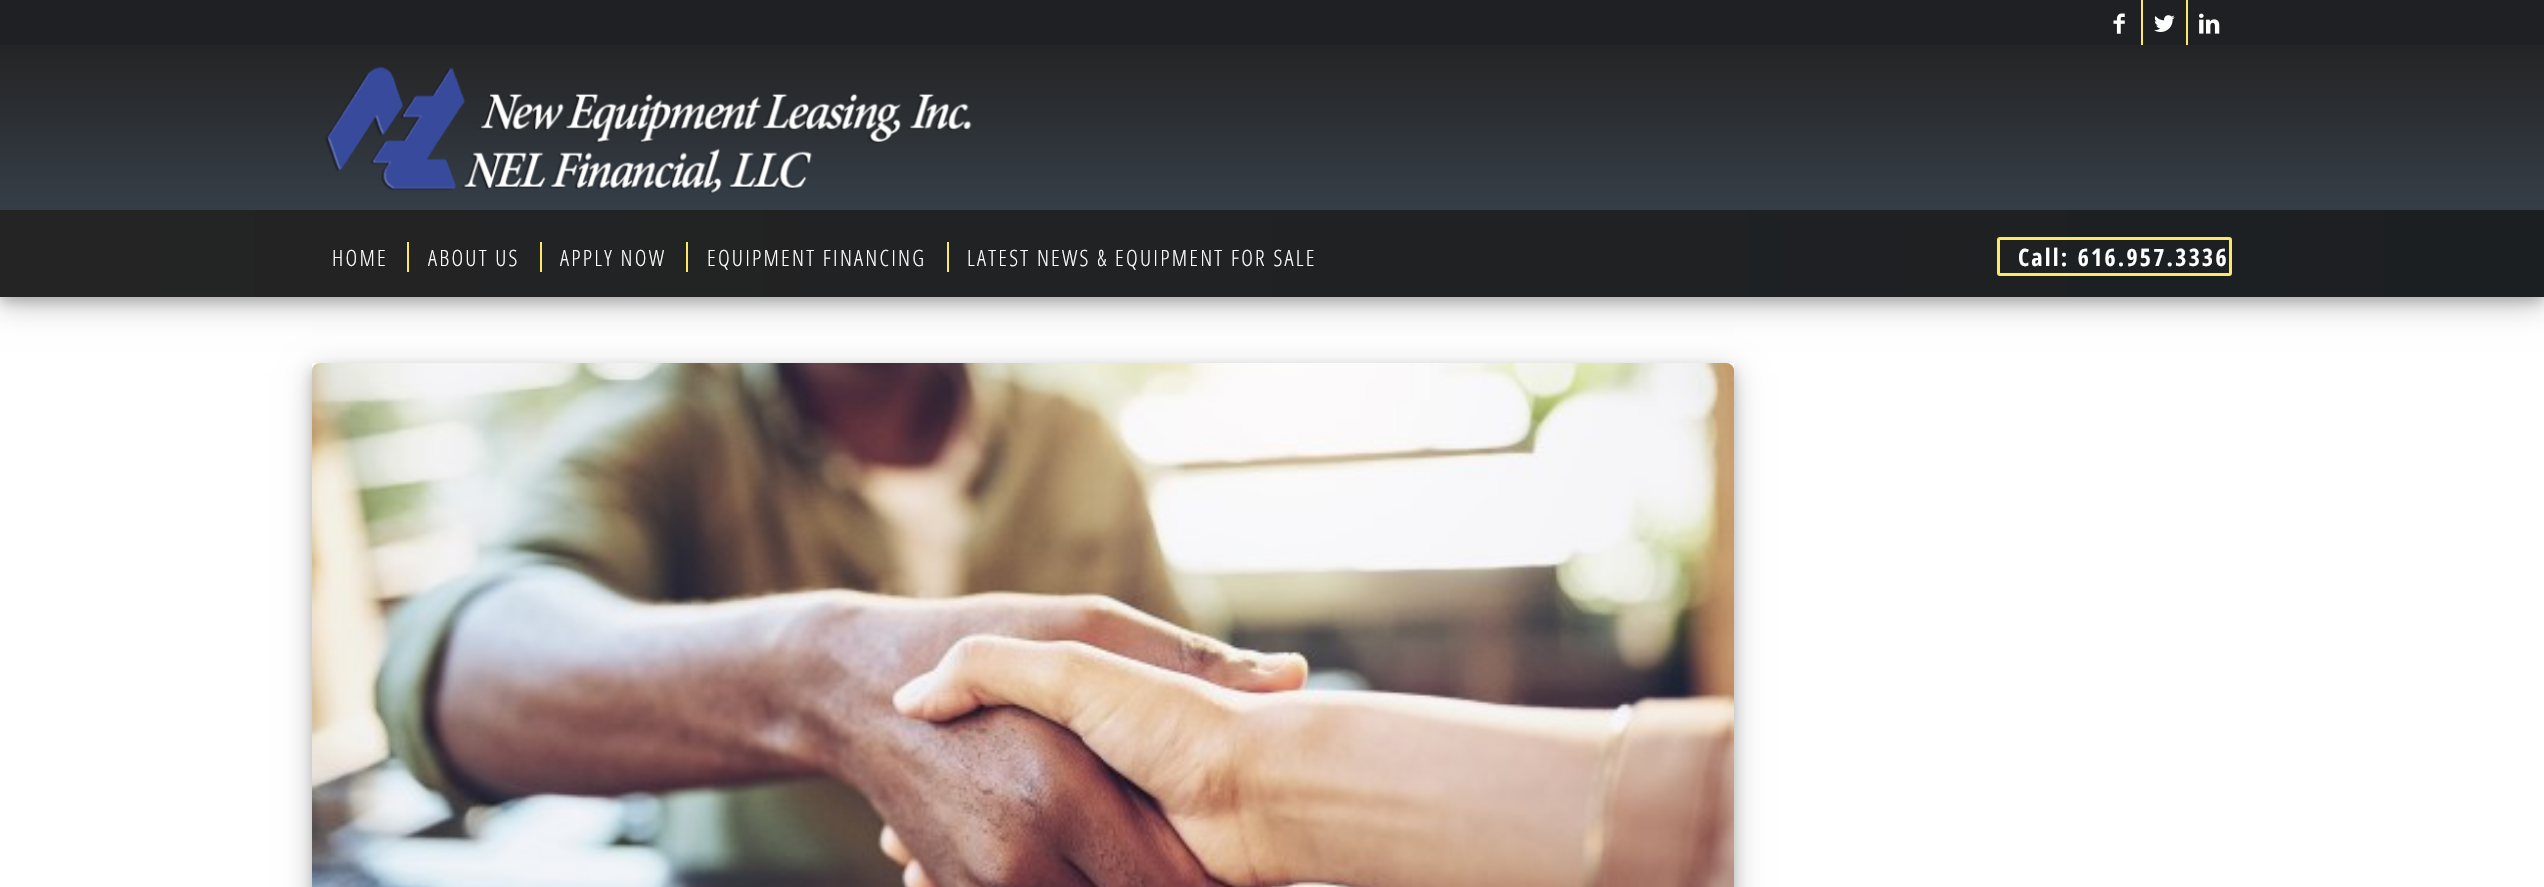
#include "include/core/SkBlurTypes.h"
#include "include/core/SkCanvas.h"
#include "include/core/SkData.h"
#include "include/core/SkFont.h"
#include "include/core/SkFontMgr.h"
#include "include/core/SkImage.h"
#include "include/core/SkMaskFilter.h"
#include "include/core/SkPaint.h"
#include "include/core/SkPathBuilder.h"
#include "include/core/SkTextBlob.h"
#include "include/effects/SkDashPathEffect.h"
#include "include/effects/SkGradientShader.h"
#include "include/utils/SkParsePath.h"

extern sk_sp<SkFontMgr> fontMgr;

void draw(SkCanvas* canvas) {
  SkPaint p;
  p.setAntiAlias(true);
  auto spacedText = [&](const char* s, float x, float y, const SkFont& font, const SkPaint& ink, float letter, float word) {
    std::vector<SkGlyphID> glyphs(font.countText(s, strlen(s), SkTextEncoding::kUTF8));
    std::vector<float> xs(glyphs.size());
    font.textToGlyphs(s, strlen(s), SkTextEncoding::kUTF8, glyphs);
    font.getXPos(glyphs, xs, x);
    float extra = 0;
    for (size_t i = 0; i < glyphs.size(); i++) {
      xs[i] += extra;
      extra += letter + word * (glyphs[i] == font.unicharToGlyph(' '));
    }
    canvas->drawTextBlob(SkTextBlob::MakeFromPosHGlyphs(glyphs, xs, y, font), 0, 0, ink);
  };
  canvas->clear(SK_ColorWHITE);
  p.setColor(SkColorSetARGB(48, 0, 0, 0));
  p.setMaskFilter(SkMaskFilter::MakeBlur(kNormal_SkBlurStyle, 15));
  canvas->drawRect(SkRect::MakeLTRB(0, 9, 2544, 306), p);
  p.setMaskFilter(nullptr);
  p.setColor(SkColorSetARGB(51, 0, 0, 0));
  p.setMaskFilter(SkMaskFilter::MakeBlur(kNormal_SkBlurStyle, 6));
  canvas->drawRect(SkRect::MakeLTRB(0, 6, 2544, 303), p);
  p.setMaskFilter(nullptr);
  p.setColor(SkColorSetRGB(30, 32, 35));
  canvas->drawRect(SkRect::MakeLTRB(0, 0, 2544, 45), p);
  p.setColor(SkColorSetRGB(252, 232, 102));
  canvas->drawRect(SkRect::MakeLTRB(2141, 0, 2143, 45), p);
  canvas->drawImageRect(SkImages::DeferredFromEncodedData(SkData::MakeFromFileName("images/1.png")), SkRect::MakeLTRB(2113, 13, 2125, 34), SkSamplingOptions());
  canvas->drawRect(SkRect::MakeLTRB(2186, 0, 2188, 45), p);
  canvas->drawImageRect(SkImages::DeferredFromEncodedData(SkData::MakeFromFileName("images/2.png")), SkRect::MakeLTRB(2154, 15, 2175, 32), SkSamplingOptions());
  canvas->drawImageRect(SkImages::DeferredFromEncodedData(SkData::MakeFromFileName("images/3.png")), SkRect::MakeLTRB(2199, 13, 2220, 34), SkSamplingOptions());
  {
    const SkColor colors[] = {SkColorSetRGB(36, 36, 36), SkColorSetRGB(62, 76, 91)};
    const float stops[] = {0, 1};
    const SkPoint ends[] = {{1272, 45}, {1272, 297}};
    p.setShader(SkGradientShader::MakeLinear(ends, colors, stops, 2, SkTileMode::kClamp));
    p.setAlpha(255);
  }
  canvas->drawRect(SkRect::MakeLTRB(0, 45, 2544, 210), p);
  canvas->drawImageRect(SkImages::DeferredFromEncodedData(SkData::MakeFromFileName("images/4.png")), SkRect::MakeLTRB(325, 66, 972, 194), SkSamplingOptions());
  {
    const SkColor colors[] = {SkColorSetRGB(36, 36, 36), SkColorSetRGB(28, 31, 34)};
    const float stops[] = {0, 1};
    const SkPoint ends[] = {{0, 254}, {2544, 253}};
    p.setShader(SkGradientShader::MakeLinear(ends, colors, stops, 2, SkTileMode::kClamp));
    p.setAlpha(255);
  }
  canvas->drawRect(SkRect::MakeLTRB(0, 210, 2544, 297), p);
  p.setShader(nullptr);
  p.setColor(SkColorSetRGB(252, 232, 102));
  canvas->drawRect(SkRect::MakeLTRB(407, 242, 409, 272), p);
  canvas->drawRect(SkRect::MakeLTRB(540, 242, 542, 272), p);
  canvas->drawRect(SkRect::MakeLTRB(686, 242, 688, 272), p);
  canvas->drawRect(SkRect::MakeLTRB(947, 242, 949, 272), p);
  p.setStyle(SkPaint::kStroke_Style);
  p.setStrokeWidth(3);
  canvas->drawRoundRect(SkRect::MakeLTRB(1998.5f, 238.5f, 2230.5f, 274.5f), 1.5f, 1.5f, p);
  canvas->save();
  canvas->clipPath(SkPathBuilder(SkPathFillType::kEvenOdd).moveTo(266, 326).lineTo(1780, 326).lineTo(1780, 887).lineTo(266, 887).close().moveTo(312, 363).lineTo(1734, 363).lineTo(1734, 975).lineTo(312, 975).close().detach(), true);
  p.setStyle(SkPaint::kFill_Style);
  p.setColor(SkColorSetARGB(48, 0, 0, 0));
  p.setMaskFilter(SkMaskFilter::MakeBlur(kNormal_SkBlurStyle, 15));
  canvas->drawRect(SkRect::MakeLTRB(312, 372, 1734, 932), p);
  p.setMaskFilter(nullptr);
  canvas->restore();
  canvas->save();
  canvas->clipPath(SkPathBuilder(SkPathFillType::kEvenOdd).moveTo(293, 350).lineTo(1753, 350).lineTo(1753, 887).lineTo(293, 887).close().moveTo(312, 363).lineTo(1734, 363).lineTo(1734, 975).lineTo(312, 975).close().detach(), true);
  p.setColor(SkColorSetARGB(51, 0, 0, 0));
  p.setMaskFilter(SkMaskFilter::MakeBlur(kNormal_SkBlurStyle, 6));
  canvas->drawRect(SkRect::MakeLTRB(312, 369, 1734, 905), p);
  p.setMaskFilter(nullptr);
  canvas->restore();
  canvas->drawImageRect(SkImages::DeferredFromEncodedData(SkData::MakeFromFileName("images/5.png")), SkRect::MakeLTRB(312, 363, 1734, 887), SkSamplingOptions());
  SkFont font1(fontMgr->matchFamilyStyle("Open Sans Condensed", SkFontStyle(300, SkFontStyle::kNormal_Width, SkFontStyle::kUpright_Slant)), 22.5f);
  font1.setSubpixel(true);
  p.setColor(SK_ColorWHITE);
  spacedText("HOME", 332, 266, font1, p, 2.25f, 0);
  spacedText("ABOUT US", 428, 266, font1, p, 2.25f, 0);
  spacedText("APPLY NOW", 560, 266, font1, p, 2.25f, 0);
  spacedText("EQUIPMENT FINANCING", 707, 266, font1, p, 2.25f, 0);
  spacedText("LATEST NEWS & EQUIPMENT FOR SALE", 967, 266, font1, p, 2.25f, 0);
  SkFont font2(fontMgr->matchFamilyStyle("Open Sans Condensed", SkFontStyle::Bold()), 24);
  font2.setSubpixel(true);
  spacedText("Call: 616.957.3336", 2018, 266, font2, p, 2.25f, 0);
}
